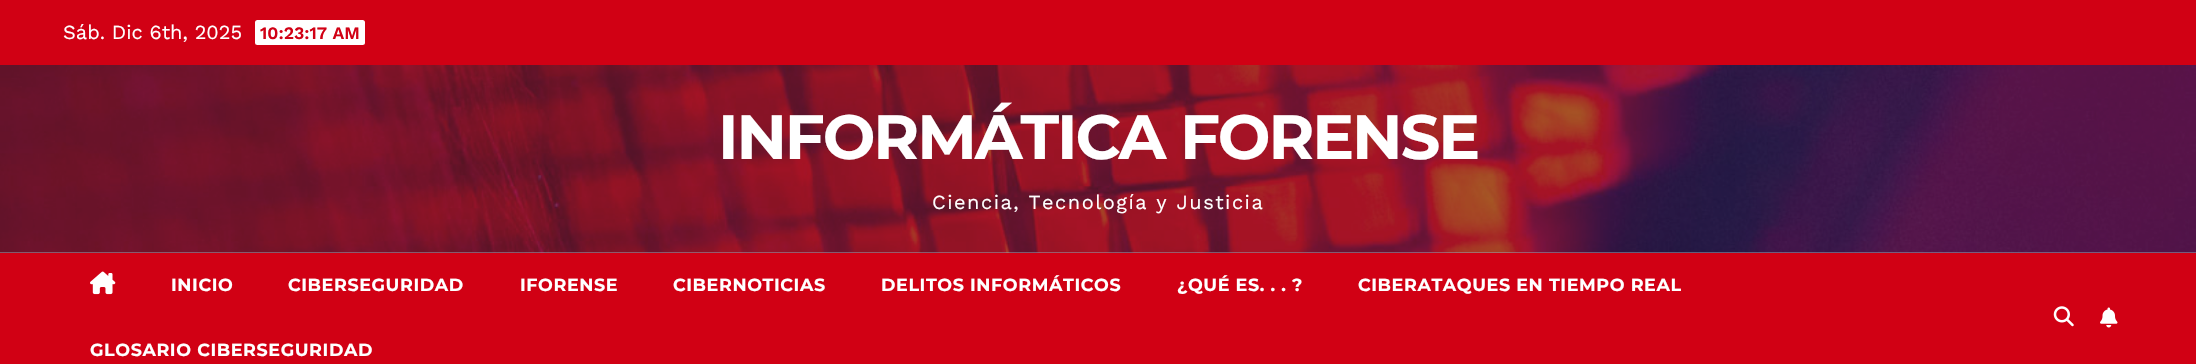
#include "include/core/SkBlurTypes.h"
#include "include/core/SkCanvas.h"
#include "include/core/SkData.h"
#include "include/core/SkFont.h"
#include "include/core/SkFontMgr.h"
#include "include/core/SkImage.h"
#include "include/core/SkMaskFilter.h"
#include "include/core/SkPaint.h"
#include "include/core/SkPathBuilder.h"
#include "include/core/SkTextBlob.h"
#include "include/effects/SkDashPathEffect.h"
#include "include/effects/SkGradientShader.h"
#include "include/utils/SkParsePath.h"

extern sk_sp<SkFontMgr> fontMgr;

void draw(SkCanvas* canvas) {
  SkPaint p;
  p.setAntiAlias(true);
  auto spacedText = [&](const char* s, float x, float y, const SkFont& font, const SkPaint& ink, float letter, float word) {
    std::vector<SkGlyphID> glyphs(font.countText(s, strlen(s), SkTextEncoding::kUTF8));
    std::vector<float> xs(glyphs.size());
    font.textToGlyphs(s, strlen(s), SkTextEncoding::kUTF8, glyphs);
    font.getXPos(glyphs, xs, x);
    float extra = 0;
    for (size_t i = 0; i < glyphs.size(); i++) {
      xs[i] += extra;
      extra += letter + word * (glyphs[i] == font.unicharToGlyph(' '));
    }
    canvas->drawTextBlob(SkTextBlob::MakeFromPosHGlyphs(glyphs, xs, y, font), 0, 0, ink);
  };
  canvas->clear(SkColorSetRGB(156, 162, 179));
  p.setColor(SkColorSetRGB(209, 0, 20));
  canvas->drawRect(SkRect::MakeLTRB(0, 0, 2196, 65), p);
  p.setColor(SK_ColorWHITE);
  canvas->drawRoundRect(SkRect::MakeLTRB(255, 20, 365, 45), 2.5f, 2.5f, p);
  canvas->drawImageRect(SkImages::DeferredFromEncodedData(SkData::MakeFromFileName("images/1.png")), SkRect::MakeLTRB(0, 65, 2196, 253), SkSamplingOptions());
  p.setColor(SkColorSetRGB(209, 0, 20));
  canvas->drawRect(SkRect::MakeLTRB(0, 253, 2196, 364), p);
  canvas->drawImageRect(SkImages::DeferredFromEncodedData(SkData::MakeFromFileName("images/2.png")), SkRect::MakeLTRB(90, 271, 116, 295), SkSamplingOptions());
  canvas->drawImageRect(SkImages::DeferredFromEncodedData(SkData::MakeFromFileName("images/3.png")), SkRect::MakeLTRB(2053, 306, 2074, 327), SkSamplingOptions());
  canvas->drawImageRect(SkImages::DeferredFromEncodedData(SkData::MakeFromFileName("images/4.png")), SkRect::MakeLTRB(2100, 307, 2118, 328), SkSamplingOptions());
  SkFont font1(fontMgr->matchFamilyStyle("Work Sans", SkFontStyle::Normal()), 20);
  font1.setSubpixel(true);
  p.setColor(SK_ColorWHITE);
  canvas->drawString("Sáb. Dic 6th, 2025", 63, 39, font1, p);
  SkFont font2(fontMgr->matchFamilyStyle("Work Sans", SkFontStyle(600, SkFontStyle::kNormal_Width, SkFontStyle::kUpright_Slant)), 17.5f);
  font2.setSubpixel(true);
  p.setColor(SkColorSetRGB(209, 0, 20));
  canvas->drawString("10:23:17 AM", 260, 39, font2, p);
  SkFont font3(fontMgr->matchFamilyStyle("Montserrat", SkFontStyle::Bold()), 62.5f);
  font3.setSubpixel(true);
  p.setColor(SK_ColorWHITE);
  spacedText("INFORMÁTICA FORENSE", 718, 159, font3, p, -2.1f, 0);
  spacedText("Ciencia, Tecnología y Justicia", 932, 209, font1, p, 1.5f, 0);
  SkFont font4(fontMgr->matchFamilyStyle("Montserrat", SkFontStyle::Bold()), 17.5f);
  font4.setSubpixel(true);
  spacedText("INICIO", 171, 291, font4, p, 0.6f, 0);
  spacedText("CIBERSEGURIDAD", 288, 291, font4, p, 0.6f, 0);
  spacedText("IFORENSE", 520, 291, font4, p, 0.6f, 0);
  spacedText("CIBERNOTICIAS", 673, 291, font4, p, 0.6f, 0);
  spacedText("DELITOS INFORMÁTICOS", 881, 291, font4, p, 0.6f, 0);
  spacedText("¿QUÉ ES. . . ?", 1177, 291, font4, p, 0.6f, 0);
  spacedText("CIBERATAQUES EN TIEMPO REAL", 1358, 291, font4, p, 0.6f, 0);
  spacedText("GLOSARIO CIBERSEGURIDAD", 90, 356, font4, p, 0.6f, 0);
}
